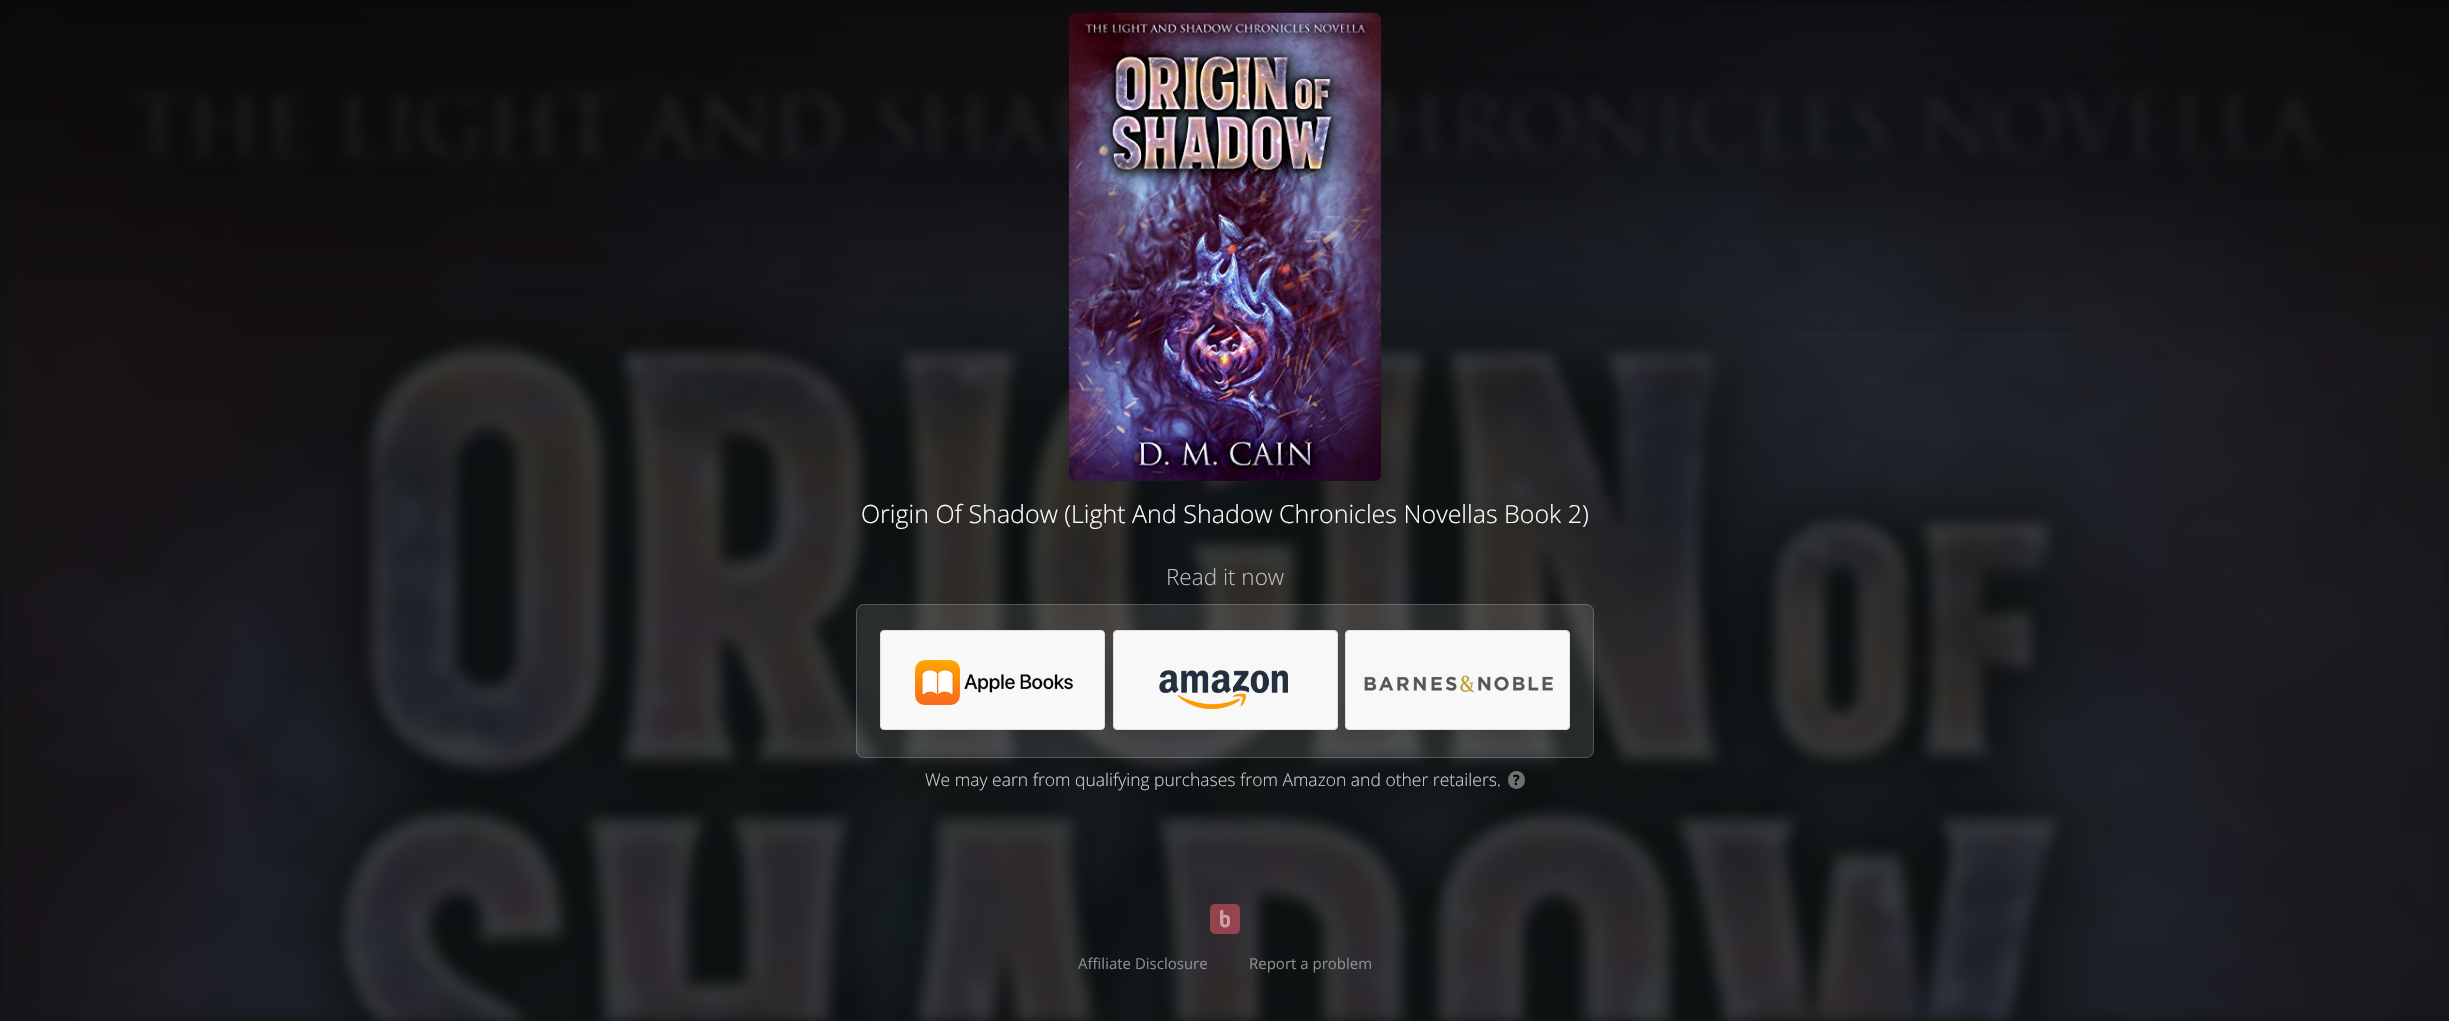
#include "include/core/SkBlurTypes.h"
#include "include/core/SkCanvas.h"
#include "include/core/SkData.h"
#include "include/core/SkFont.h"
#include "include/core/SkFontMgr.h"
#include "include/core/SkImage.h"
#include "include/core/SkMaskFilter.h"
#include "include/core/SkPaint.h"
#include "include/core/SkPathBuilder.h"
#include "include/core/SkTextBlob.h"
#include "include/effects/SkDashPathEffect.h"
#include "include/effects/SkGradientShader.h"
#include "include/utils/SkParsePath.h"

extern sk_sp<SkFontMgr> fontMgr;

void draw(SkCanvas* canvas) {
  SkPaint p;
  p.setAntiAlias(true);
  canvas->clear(SkColorSetRGB(15, 20, 21));
  canvas->drawImageRect(SkImages::DeferredFromEncodedData(SkData::MakeFromFileName("images/1.png")), SkRect::MakeLTRB(1, 0, 2449, 1021), SkSamplingOptions());
  {
    const SkColor colors[] = {SkColorSetARGB(128, 0, 0, 0), SkColorSetARGB(0, 0, 0, 0)};
    const float stops[] = {0, 1};
    const SkPoint ends[] = {{1225, 0}, {1225, 375}};
    p.setShader(SkGradientShader::MakeLinear(ends, colors, stops, 2, SkTileMode::kClamp));
    p.setAlpha(255);
  }
  canvas->drawRect(SkRect::MakeLTRB(0, 0, 2449, 332), p);
  canvas->drawImageRect(SkImages::DeferredFromEncodedData(SkData::MakeFromFileName("images/2.png")), SkRect::MakeLTRB(1068, 12, 1382, 481), SkSamplingOptions());
  p.setShader(nullptr);
  p.setColor(SkColorSetARGB(26, 255, 255, 255));
  canvas->drawRoundRect(SkRect::MakeLTRB(856, 604, 1594, 758), 8, 8, p);
  p.setStyle(SkPaint::kStroke_Style);
  p.setStrokeWidth(1);
  p.setColor(SkColorSetARGB(51, 255, 255, 255));
  canvas->drawRoundRect(SkRect::MakeLTRB(856.5f, 604.5f, 1593.5f, 757.5f), 7.5f, 7.5f, p);
  p.setStyle(SkPaint::kFill_Style);
  p.setColor(SkColorSetRGB(248, 248, 248));
  canvas->drawRoundRect(SkRect::MakeLTRB(880.5f, 630.5f, 1104.5f, 729.5f), 3.5f, 3.5f, p);
  p.setStyle(SkPaint::kStroke_Style);
  p.setColor(SkColorSetRGB(224, 224, 224));
  canvas->drawRoundRect(SkRect::MakeLTRB(880.5f, 630.5f, 1104.5f, 729.5f), 3.5f, 3.5f, p);
  canvas->drawImageRect(SkImages::DeferredFromEncodedData(SkData::MakeFromFileName("images/3.png")), SkRect::MakeLTRB(915, 660, 1073, 705), SkSamplingOptions());
  p.setStyle(SkPaint::kFill_Style);
  p.setColor(SkColorSetRGB(248, 248, 248));
  canvas->drawRoundRect(SkRect::MakeLTRB(1113.5f, 630.5f, 1337.5f, 729.5f), 3.5f, 3.5f, p);
  p.setStyle(SkPaint::kStroke_Style);
  p.setColor(SkColorSetRGB(224, 224, 224));
  canvas->drawRoundRect(SkRect::MakeLTRB(1113.5f, 630.5f, 1337.5f, 729.5f), 3.5f, 3.5f, p);
  canvas->drawImageRect(SkImages::DeferredFromEncodedData(SkData::MakeFromFileName("images/4.png")), SkRect::MakeLTRB(1159, 670, 1288, 709), SkSamplingOptions());
  p.setStyle(SkPaint::kFill_Style);
  p.setColor(SkColorSetRGB(248, 248, 248));
  canvas->drawRoundRect(SkRect::MakeLTRB(1345.5f, 630.5f, 1569.5f, 729.5f), 3.5f, 3.5f, p);
  p.setStyle(SkPaint::kStroke_Style);
  p.setColor(SkColorSetRGB(224, 224, 224));
  canvas->drawRoundRect(SkRect::MakeLTRB(1345.5f, 630.5f, 1569.5f, 729.5f), 3.5f, 3.5f, p);
  canvas->drawImageRect(SkImages::DeferredFromEncodedData(SkData::MakeFromFileName("images/5.png")), SkRect::MakeLTRB(1364, 675, 1553, 692), SkSamplingOptions());
  p.setStyle(SkPaint::kFill_Style);
  p.setColor(SkColorSetRGB(110, 112, 113));
  canvas->drawRoundRect(SkRect::MakeLTRB(1508, 771, 1525, 789), 8.5f, 8.5f, p);
  {
    const SkColor colors[] = {SkColorSetARGB(128, 249, 98, 89), SkColorSetARGB(128, 255, 83, 122)};
    const float stops[] = {0, 1};
    const SkPoint ends[] = {{1209, 904}, {1241, 933}};
    p.setShader(SkGradientShader::MakeLinear(ends, colors, stops, 2, SkTileMode::kClamp));
    p.setAlpha(255);
  }
  canvas->drawRoundRect(SkRect::MakeLTRB(1210, 904, 1240, 934), 5, 5, p);
  canvas->drawImageRect(SkImages::DeferredFromEncodedData(SkData::MakeFromFileName("images/6.png")), SkRect::MakeLTRB(1220, 910, 1230, 928), SkSamplingOptions());
  SkFont font1(fontMgr->matchFamilyStyle("Open Sans", SkFontStyle(300, SkFontStyle::kNormal_Width, SkFontStyle::kUpright_Slant)), 25);
  font1.setSubpixel(true);
  p.setShader(nullptr);
  p.setColor(SK_ColorWHITE);
  canvas->drawString("Origin Of Shadow (Light And Shadow Chronicles Novellas Book 2)", 861, 523, font1, p);
  SkFont font2(fontMgr->matchFamilyStyle("Open Sans", SkFontStyle(300, SkFontStyle::kNormal_Width, SkFontStyle::kUpright_Slant)), 22.5f);
  font2.setSubpixel(true);
  p.setColor(SkColorSetRGB(189, 190, 189));
  canvas->drawString("Read it now", 1166, 585, font2, p);
  SkFont font3(fontMgr->matchFamilyStyle("Open Sans", SkFontStyle(300, SkFontStyle::kNormal_Width, SkFontStyle::kUpright_Slant)), 17.5f);
  font3.setSubpixel(true);
  p.setColor(SkColorSetRGB(207, 208, 208));
  canvas->drawString("We may earn from qualifying purchases from Amazon and other retailers.", 925, 786, font3, p);
  SkFont font4(fontMgr->matchFamilyStyle("Open Sans", SkFontStyle::Bold()), 14);
  font4.setSubpixel(true);
  p.setColor(SkColorSetRGB(3, 3, 4));
  canvas->drawString("?", 1513, 785, font4, p);
  SkFont font5(fontMgr->matchFamilyStyle("Open Sans", SkFontStyle::Normal()), 15);
  font5.setSubpixel(true);
  p.setColor(SkColorSetRGB(139, 141, 142));
  canvas->drawString("Affiliate Disclosure", 1078, 969, font5, p);
  canvas->drawString("Report a problem", 1249, 969, font5, p);
}
